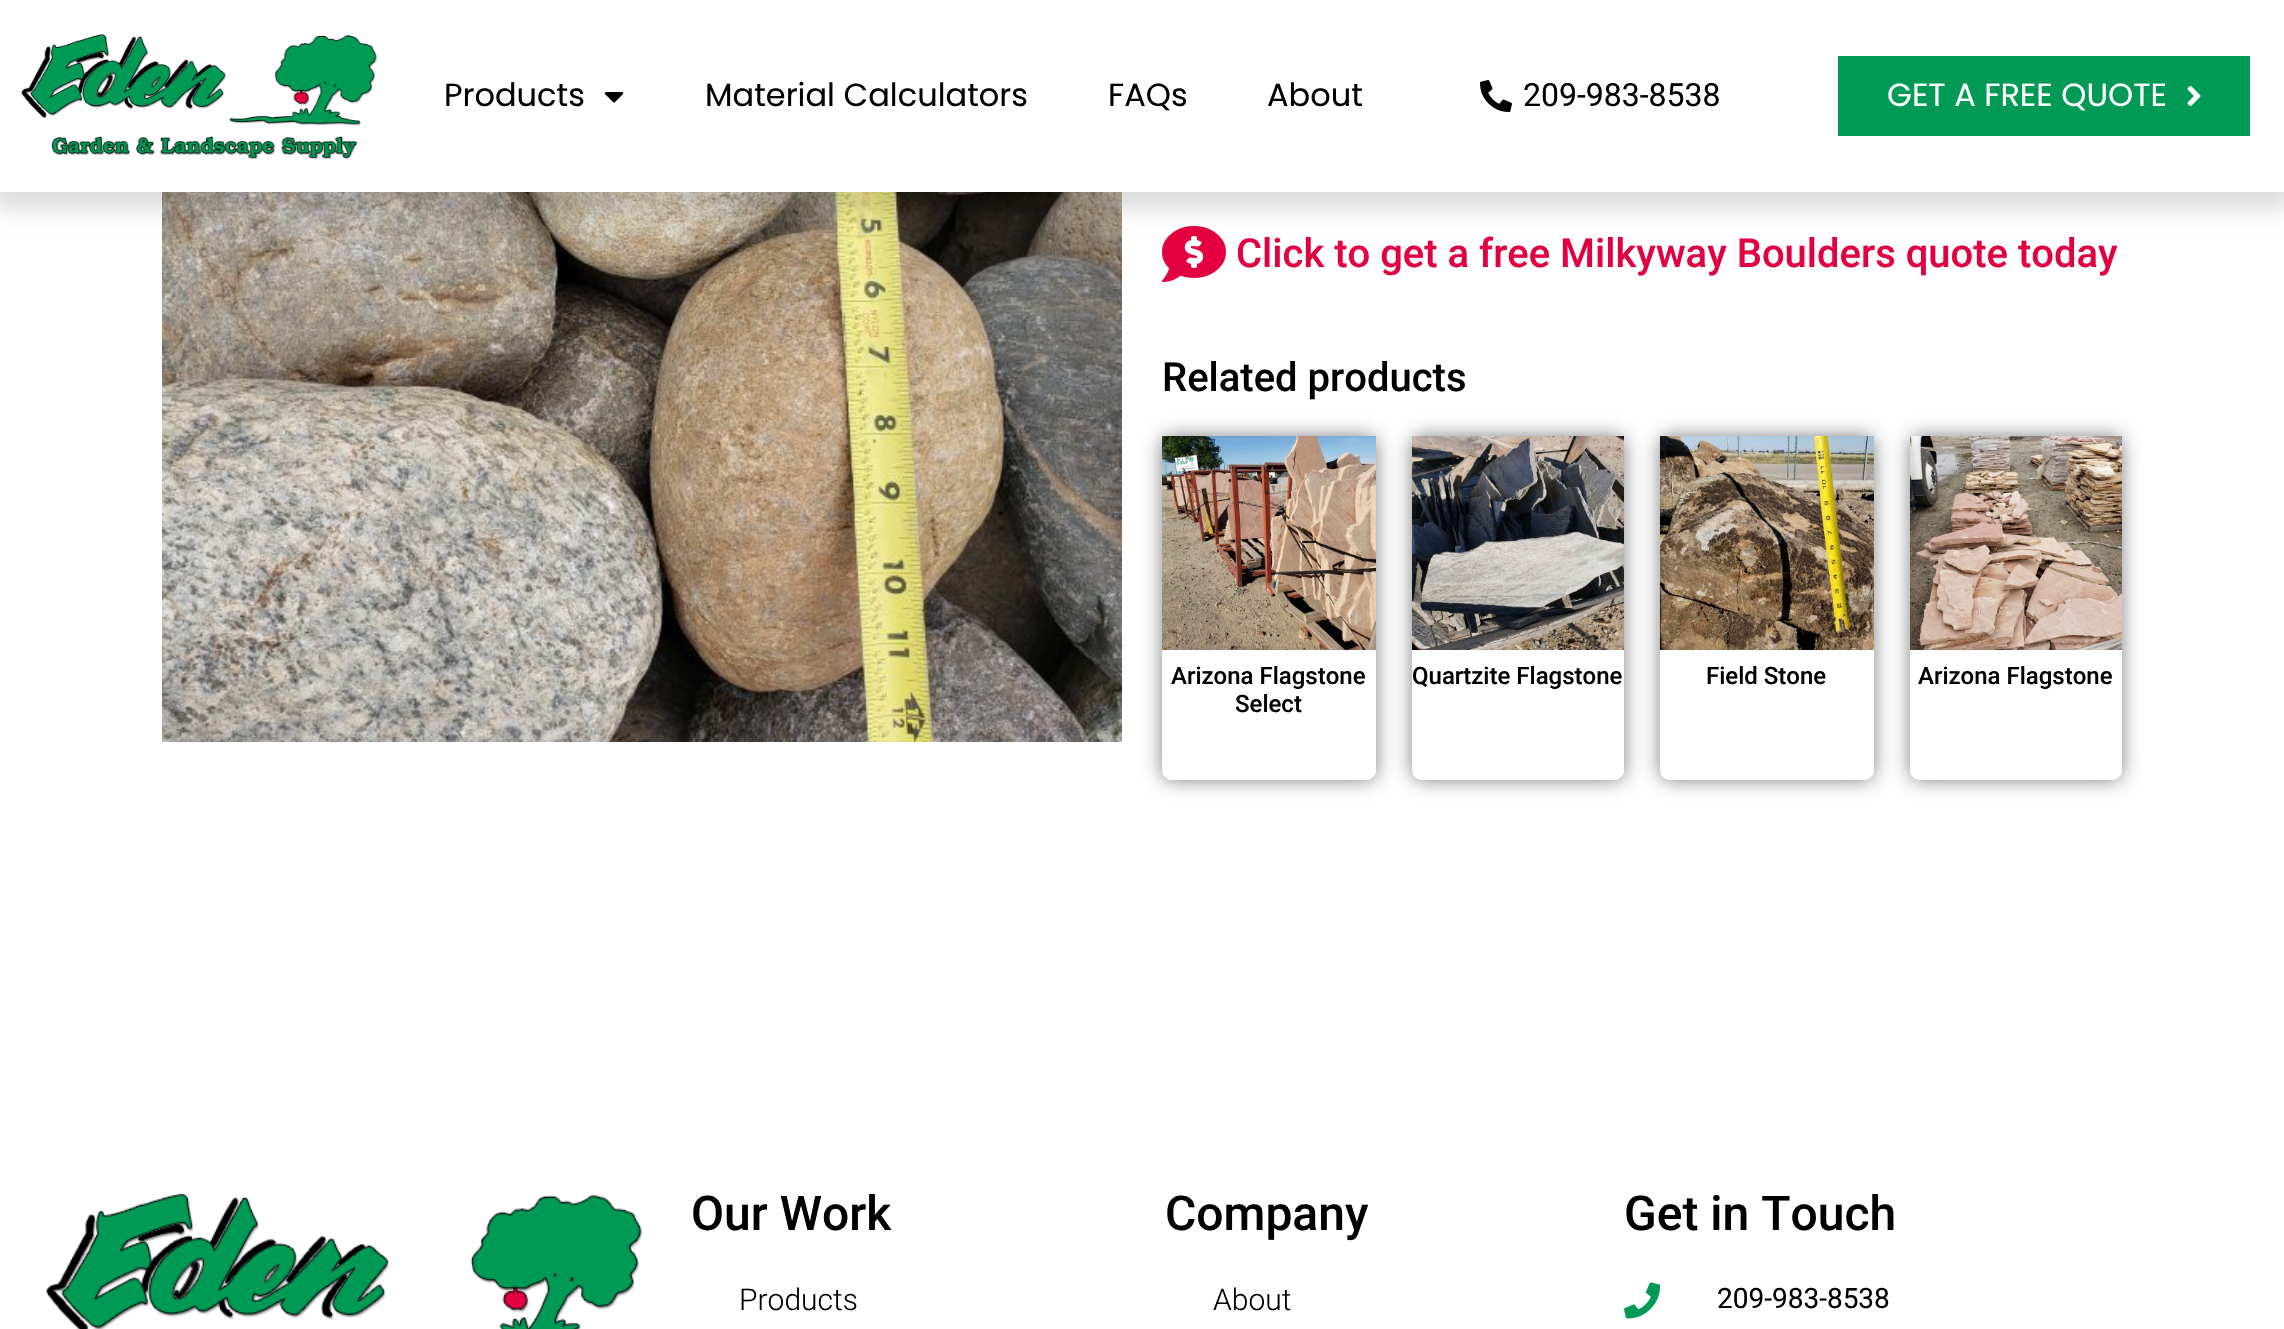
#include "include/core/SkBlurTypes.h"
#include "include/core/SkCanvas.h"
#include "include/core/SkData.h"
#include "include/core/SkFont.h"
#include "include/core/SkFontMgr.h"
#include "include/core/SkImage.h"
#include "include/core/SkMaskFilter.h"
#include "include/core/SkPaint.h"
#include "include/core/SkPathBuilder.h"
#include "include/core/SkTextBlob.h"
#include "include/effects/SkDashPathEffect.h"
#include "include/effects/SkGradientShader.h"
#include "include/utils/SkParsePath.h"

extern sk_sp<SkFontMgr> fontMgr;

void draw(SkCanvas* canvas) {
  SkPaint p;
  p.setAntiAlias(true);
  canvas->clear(SK_ColorWHITE);
  canvas->drawImageRect(SkImages::DeferredFromEncodedData(SkData::MakeFromFileName("images/5.png")), SkRect::MakeLTRB(162, 192, 1122, 742), SkSamplingOptions());
  canvas->drawImageRect(SkImages::DeferredFromEncodedData(SkData::MakeFromFileName("images/6.png")), SkRect::MakeLTRB(1162, 226, 1226, 282), SkSamplingOptions());
  p.setColor(SkColorSetARGB(33, 0, 0, 0));
  p.setMaskFilter(SkMaskFilter::MakeBlur(kNormal_SkBlurStyle, 10));
  canvas->drawRect(SkRect::MakeLTRB(-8, 2, 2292, 210), p);
  p.setMaskFilter(nullptr);
  p.setColor(SK_ColorWHITE);
  canvas->drawRect(SkRect::MakeLTRB(0, 0, 2284, 192), p);
  canvas->drawImageRect(SkImages::DeferredFromEncodedData(SkData::MakeFromFileName("images/1.png")), SkRect::MakeLTRB(21, 34, 377, 159), SkSamplingOptions());
  canvas->drawImageRect(SkImages::DeferredFromEncodedData(SkData::MakeFromFileName("images/2.png")), SkRect::MakeLTRB(604, 92, 624, 103), SkSamplingOptions());
  canvas->drawImageRect(SkImages::DeferredFromEncodedData(SkData::MakeFromFileName("images/3.png")), SkRect::MakeLTRB(1480, 80, 1512, 112), SkSamplingOptions());
  p.setColor(SkColorSetRGB(0, 154, 84));
  canvas->drawRect(SkRect::MakeLTRB(1838, 56, 2250, 136), p);
  canvas->drawImageRect(SkImages::DeferredFromEncodedData(SkData::MakeFromFileName("images/4.png")), SkRect::MakeLTRB(2187, 86, 2201, 106), SkSamplingOptions());
  canvas->save();
  canvas->clipPath(SkPathBuilder(SkPathFillType::kEvenOdd).moveTo(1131, 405).lineTo(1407, 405).lineTo(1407, 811).lineTo(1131, 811).close().moveTo(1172, 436).lineTo(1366, 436).cubicTo(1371.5f, 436, 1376, 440.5f, 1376, 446).lineTo(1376, 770).cubicTo(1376, 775.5f, 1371.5f, 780, 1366, 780).lineTo(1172, 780).cubicTo(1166.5f, 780, 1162, 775.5f, 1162, 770).lineTo(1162, 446).cubicTo(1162, 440.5f, 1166.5f, 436, 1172, 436).close().detach(), true);
  p.setColor(SkColorSetARGB(128, 0, 0, 0));
  p.setMaskFilter(SkMaskFilter::MakeBlur(kNormal_SkBlurStyle, 10));
  canvas->drawRoundRect(SkRect::MakeLTRB(1162, 436, 1376, 780), 10, 10, p);
  p.setMaskFilter(nullptr);
  canvas->restore();
  canvas->drawImageRect(SkImages::DeferredFromEncodedData(SkData::MakeFromFileName("images/7.png")), SkRect::MakeLTRB(1162, 436, 1376, 650), SkSamplingOptions());
  canvas->save();
  canvas->clipPath(SkPathBuilder(SkPathFillType::kEvenOdd).moveTo(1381, 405).lineTo(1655, 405).lineTo(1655, 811).lineTo(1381, 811).close().moveTo(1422, 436).lineTo(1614, 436).cubicTo(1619.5f, 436, 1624, 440.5f, 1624, 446).lineTo(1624, 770).cubicTo(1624, 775.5f, 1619.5f, 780, 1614, 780).lineTo(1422, 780).cubicTo(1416.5f, 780, 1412, 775.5f, 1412, 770).lineTo(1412, 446).cubicTo(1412, 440.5f, 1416.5f, 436, 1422, 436).close().detach(), true);
  p.setMaskFilter(SkMaskFilter::MakeBlur(kNormal_SkBlurStyle, 10));
  canvas->drawRoundRect(SkRect::MakeLTRB(1412, 436, 1624, 780), 10, 10, p);
  p.setMaskFilter(nullptr);
  canvas->restore();
  canvas->drawImageRect(SkImages::DeferredFromEncodedData(SkData::MakeFromFileName("images/8.png")), SkRect::MakeLTRB(1412, 436, 1624, 650), SkSamplingOptions());
  canvas->save();
  canvas->clipPath(SkPathBuilder(SkPathFillType::kEvenOdd).moveTo(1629, 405).lineTo(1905, 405).lineTo(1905, 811).lineTo(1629, 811).close().moveTo(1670, 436).lineTo(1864, 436).cubicTo(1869.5f, 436, 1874, 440.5f, 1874, 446).lineTo(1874, 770).cubicTo(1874, 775.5f, 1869.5f, 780, 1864, 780).lineTo(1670, 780).cubicTo(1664.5f, 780, 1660, 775.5f, 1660, 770).lineTo(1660, 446).cubicTo(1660, 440.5f, 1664.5f, 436, 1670, 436).close().detach(), true);
  p.setMaskFilter(SkMaskFilter::MakeBlur(kNormal_SkBlurStyle, 10));
  canvas->drawRoundRect(SkRect::MakeLTRB(1660, 436, 1874, 780), 10, 10, p);
  p.setMaskFilter(nullptr);
  canvas->restore();
  canvas->drawImageRect(SkImages::DeferredFromEncodedData(SkData::MakeFromFileName("images/9.png")), SkRect::MakeLTRB(1660, 436, 1874, 650), SkSamplingOptions());
  canvas->save();
  canvas->clipPath(SkPathBuilder(SkPathFillType::kEvenOdd).moveTo(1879, 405).lineTo(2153, 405).lineTo(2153, 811).lineTo(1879, 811).close().moveTo(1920, 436).lineTo(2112, 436).cubicTo(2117.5f, 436, 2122, 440.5f, 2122, 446).lineTo(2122, 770).cubicTo(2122, 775.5f, 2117.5f, 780, 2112, 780).lineTo(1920, 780).cubicTo(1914.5f, 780, 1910, 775.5f, 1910, 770).lineTo(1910, 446).cubicTo(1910, 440.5f, 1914.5f, 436, 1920, 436).close().detach(), true);
  p.setMaskFilter(SkMaskFilter::MakeBlur(kNormal_SkBlurStyle, 10));
  canvas->drawRoundRect(SkRect::MakeLTRB(1910, 436, 2122, 780), 10, 10, p);
  p.setMaskFilter(nullptr);
  canvas->restore();
  canvas->drawImageRect(SkImages::DeferredFromEncodedData(SkData::MakeFromFileName("images/10.png")), SkRect::MakeLTRB(1910, 436, 2122, 650), SkSamplingOptions());
  canvas->drawImageRect(SkImages::DeferredFromEncodedData(SkData::MakeFromFileName("images/11.png")), SkRect::MakeLTRB(46, 1193, 643, 1329), SkSamplingOptions());
  canvas->drawImageRect(SkImages::DeferredFromEncodedData(SkData::MakeFromFileName("images/12.png")), SkRect::MakeLTRB(1624, 1282, 1661, 1319), SkSamplingOptions());
  SkFont font1(fontMgr->matchFamilyStyle("Poppins", SkFontStyle::Normal()), 32);
  font1.setSubpixel(true);
  p.setColor(SK_ColorBLACK);
  canvas->drawString("Products", 444, 106, font1, p);
  canvas->drawString("Material Calculators", 705, 106, font1, p);
  canvas->drawString("FAQs", 1108, 106, font1, p);
  canvas->drawString("About", 1267, 106, font1, p);
  SkFont font2(fontMgr->matchFamilyStyle("Roboto", SkFontStyle::Normal()), 32);
  font2.setSubpixel(true);
  canvas->drawString("209-983-8538", 1523, 106, font2, p);
  p.setColor(SK_ColorWHITE);
  canvas->drawString("GET A FREE QUOTE", 1887, 106, font1, p);
  SkFont font3(fontMgr->matchFamilyStyle("Roboto", SkFontStyle(500, SkFontStyle::kNormal_Width, SkFontStyle::kUpright_Slant)), 40);
  font3.setSubpixel(true);
  p.setColor(SkColorSetRGB(227, 0, 64));
  canvas->drawString("Click to get a free Milkyway Boulders quote today", 1236, 267, font3, p);
  p.setColor(SK_ColorBLACK);
  canvas->drawString("Related products", 1162, 391, font3, p);
  SkFont font4(fontMgr->matchFamilyStyle("Roboto", SkFontStyle(500, SkFontStyle::kNormal_Width, SkFontStyle::kUpright_Slant)), 24);
  font4.setSubpixel(true);
  canvas->drawString("Arizona Flagstone", 1171, 684, font4, p);
  canvas->drawString("Select", 1235, 712, font4, p);
  canvas->drawString("Quartzite Flagstone", 1412, 684, font4, p);
  canvas->drawString("Field Stone", 1706, 684, font4, p);
  canvas->drawString("Arizona Flagstone", 1918, 684, font4, p);
  SkFont font5(fontMgr->matchFamilyStyle("Roboto", SkFontStyle(500, SkFontStyle::kNormal_Width, SkFontStyle::kUpright_Slant)), 48);
  font5.setSubpixel(true);
  canvas->drawString("Our Work", 691, 1230, font5, p);
  SkFont font6(fontMgr->matchFamilyStyle("Roboto", SkFontStyle(300, SkFontStyle::kNormal_Width, SkFontStyle::kUpright_Slant)), 30);
  font6.setSubpixel(true);
  canvas->drawString("Products", 739, 1310, font6, p);
  canvas->drawString("Company", 1165, 1230, font5, p);
  canvas->drawString("About", 1213, 1310, font6, p);
  canvas->drawString("Get in Touch", 1624, 1230, font5, p);
  SkFont font7(fontMgr->matchFamilyStyle("Roboto", SkFontStyle::Normal()), 28);
  font7.setSubpixel(true);
  canvas->drawString("209-983-8538", 1717, 1308, font7, p);
}
